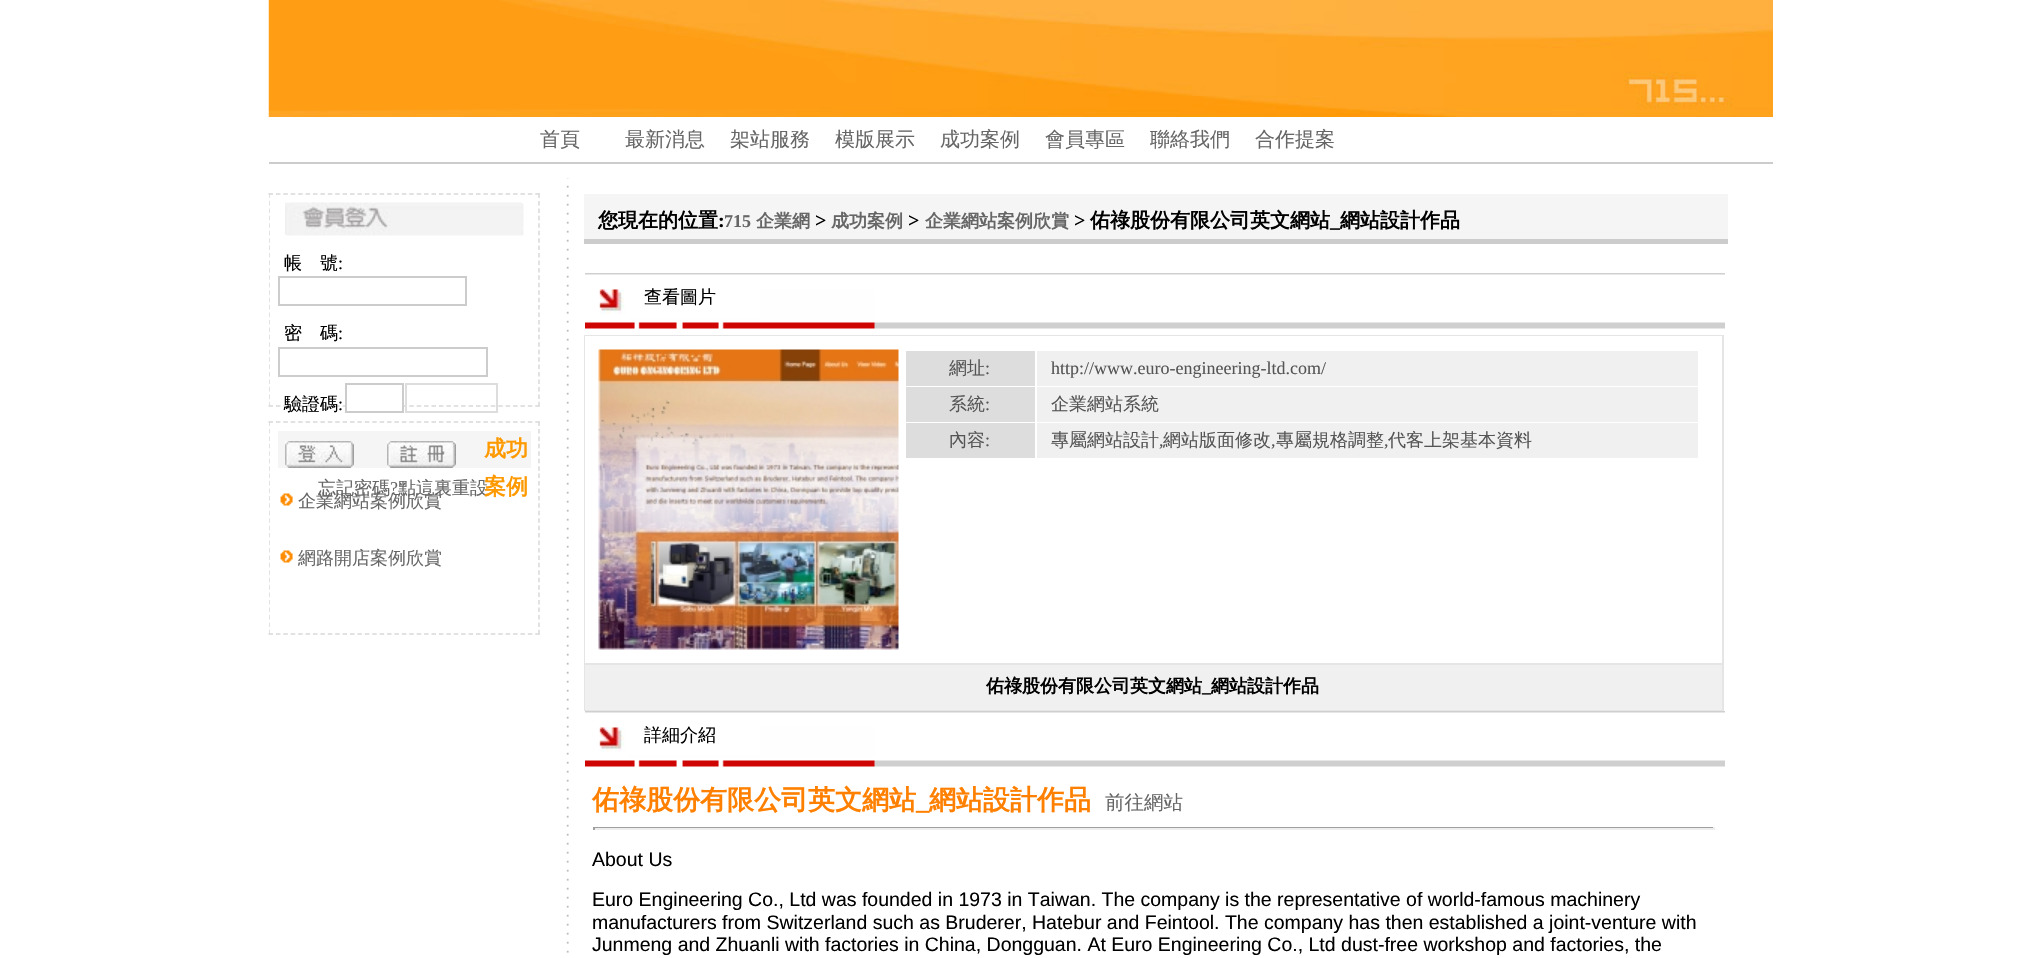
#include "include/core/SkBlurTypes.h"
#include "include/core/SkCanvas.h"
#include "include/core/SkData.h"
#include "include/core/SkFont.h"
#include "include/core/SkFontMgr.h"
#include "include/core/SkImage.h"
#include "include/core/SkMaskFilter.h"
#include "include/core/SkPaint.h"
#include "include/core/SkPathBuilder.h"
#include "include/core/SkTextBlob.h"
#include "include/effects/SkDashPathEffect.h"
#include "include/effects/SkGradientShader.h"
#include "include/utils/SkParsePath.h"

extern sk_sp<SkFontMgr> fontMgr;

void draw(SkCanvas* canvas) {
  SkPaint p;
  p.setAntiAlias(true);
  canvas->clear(SK_ColorWHITE);
  canvas->drawImageRect(SkImages::DeferredFromEncodedData(SkData::MakeFromFileName("images/1.png")), SkRect::MakeLTRB(268, 0, 1773, 117), SkSamplingOptions());
  p.setColor(SkColorSetRGB(204, 204, 204));
  canvas->drawRect(SkRect::MakeLTRB(269, 162, 1773, 164), p);
  canvas->drawImageRect(SkImages::DeferredFromEncodedData(SkData::MakeFromFileName("images/2.png")), SkRect::MakeLTRB(566, 178, 569, 953), SkSamplingOptions());
  p.setStyle(SkPaint::kStroke_Style);
  p.setStrokeWidth(1.5f);
  p.setColor(SkColorSetRGB(217, 217, 217));
  p.setPathEffect(SkDashPathEffect::Make({{4.5f, 2.91f}}, 0));
  canvas->drawPath(SkPathBuilder().moveTo(268.5f, 194).lineTo(540, 194).detach(), p);
  p.setPathEffect(nullptr);
  p.setPathEffect(SkDashPathEffect::Make({{4.5f, 2.94f}}, 0));
  canvas->drawPath(SkPathBuilder().moveTo(539, 193.5f).lineTo(539, 406.5f).detach(), p);
  p.setPathEffect(nullptr);
  p.setPathEffect(SkDashPathEffect::Make({{4.5f, 2.91f}}, 0));
  canvas->drawPath(SkPathBuilder().moveTo(268.5f, 406).lineTo(540, 406).detach(), p);
  p.setPathEffect(nullptr);
  canvas->save();
  canvas->clipRect(SkRect::MakeLTRB(269, 0, 1773, 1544));
  p.setPathEffect(SkDashPathEffect::Make({{4.5f, 2.94f}}, 0));
  canvas->drawPath(SkPathBuilder().moveTo(269, 193.5f).lineTo(269, 406.5f).detach(), p);
  p.setPathEffect(nullptr);
  canvas->restore();
  canvas->drawImageRect(SkImages::DeferredFromEncodedData(SkData::MakeFromFileName("images/3.png")), SkRect::MakeLTRB(285, 202, 524, 236), SkSamplingOptions());
  p.setStrokeWidth(2);
  p.setColor(SkColorSetRGB(204, 204, 204));
  canvas->drawRect(SkRect::MakeLTRB(279, 277, 466, 305), p);
  canvas->drawRect(SkRect::MakeLTRB(279, 348, 487, 376), p);
  p.setStyle(SkPaint::kFill_Style);
  p.setColor(SK_ColorWHITE);
  canvas->drawRect(SkRect::MakeLTRB(347, 405, 402, 407), p);
  p.setStyle(SkPaint::kStroke_Style);
  p.setColor(SkColorSetRGB(204, 204, 204));
  canvas->drawRect(SkRect::MakeLTRB(346, 384, 403, 412), p);
  p.setColor(SkColorSetRGB(221, 221, 221));
  canvas->drawRect(SkRect::MakeLTRB(406, 384, 497, 412), p);
  p.setStyle(SkPaint::kFill_Style);
  p.setColor(SkColorSetRGB(245, 245, 245));
  canvas->drawRect(SkRect::MakeLTRB(278, 431, 531, 468), p);
  canvas->drawImageRect(SkImages::DeferredFromEncodedData(SkData::MakeFromFileName("images/4.png")), SkRect::MakeLTRB(285, 441, 354, 468), SkSamplingOptions());
  canvas->drawImageRect(SkImages::DeferredFromEncodedData(SkData::MakeFromFileName("images/5.png")), SkRect::MakeLTRB(387, 441, 456, 468), SkSamplingOptions());
  p.setStyle(SkPaint::kStroke_Style);
  p.setStrokeWidth(1.5f);
  p.setColor(SkColorSetRGB(217, 217, 217));
  p.setPathEffect(SkDashPathEffect::Make({{4.5f, 2.91f}}, 0));
  canvas->drawPath(SkPathBuilder().moveTo(268.5f, 422).lineTo(540, 422).detach(), p);
  p.setPathEffect(nullptr);
  p.setPathEffect(SkDashPathEffect::Make({{4.5f, 2.94f}}, 0));
  canvas->drawPath(SkPathBuilder().moveTo(539, 421.5f).lineTo(539, 634.5f).detach(), p);
  p.setPathEffect(nullptr);
  p.setPathEffect(SkDashPathEffect::Make({{4.5f, 2.91f}}, 0));
  canvas->drawPath(SkPathBuilder().moveTo(268.5f, 634).lineTo(540, 634).detach(), p);
  p.setPathEffect(nullptr);
  canvas->save();
  canvas->clipRect(SkRect::MakeLTRB(269, 0, 1773, 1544));
  p.setPathEffect(SkDashPathEffect::Make({{4.5f, 2.94f}}, 0));
  canvas->drawPath(SkPathBuilder().moveTo(269, 421.5f).lineTo(269, 634.5f).detach(), p);
  p.setPathEffect(nullptr);
  canvas->restore();
  canvas->drawImageRect(SkImages::DeferredFromEncodedData(SkData::MakeFromFileName("images/6.png")), SkRect::MakeLTRB(280, 493, 293, 506), SkSamplingOptions());
  canvas->drawImageRect(SkImages::DeferredFromEncodedData(SkData::MakeFromFileName("images/6.png")), SkRect::MakeLTRB(280, 550, 293, 563), SkSamplingOptions());
  p.setStyle(SkPaint::kFill_Style);
  p.setColor(SkColorSetRGB(245, 245, 245));
  canvas->drawRect(SkRect::MakeLTRB(584, 194, 1728, 239), p);
  p.setColor(SkColorSetRGB(204, 204, 204));
  canvas->drawRect(SkRect::MakeLTRB(584, 239, 1728, 244), p);
  canvas->drawImageRect(SkImages::DeferredFromEncodedData(SkData::MakeFromFileName("images/7.png")), SkRect::MakeLTRB(585, 273, 1725, 329), SkSamplingOptions());
  canvas->drawImageRect(SkImages::DeferredFromEncodedData(SkData::MakeFromFileName("images/8.png")), SkRect::MakeLTRB(585, 289, 875, 329), SkSamplingOptions());
  p.setColor(SkColorSetRGB(229, 229, 229));
  canvas->drawRect(SkRect::MakeLTRB(584, 335, 1724, 711), p);
  p.setColor(SK_ColorWHITE);
  canvas->drawRect(SkRect::MakeLTRB(585, 336, 1722, 663), p);
  canvas->drawImageRect(SkImages::DeferredFromEncodedData(SkData::MakeFromFileName("images/9.png")), SkRect::MakeLTRB(598, 349, 899, 650), SkSamplingOptions());
  p.setColor(SkColorSetRGB(221, 221, 221));
  canvas->drawRect(SkRect::MakeLTRB(906, 351, 1035, 386), p);
  p.setColor(SkColorSetRGB(240, 240, 240));
  canvas->drawRect(SkRect::MakeLTRB(1037, 351, 1698, 386), p);
  p.setColor(SkColorSetRGB(221, 221, 221));
  canvas->drawRect(SkRect::MakeLTRB(906, 387, 1035, 422), p);
  p.setColor(SkColorSetRGB(240, 240, 240));
  canvas->drawRect(SkRect::MakeLTRB(1037, 387, 1698, 422), p);
  p.setColor(SkColorSetRGB(221, 221, 221));
  canvas->drawRect(SkRect::MakeLTRB(906, 423, 1035, 458), p);
  p.setColor(SkColorSetRGB(240, 240, 240));
  canvas->drawRect(SkRect::MakeLTRB(1037, 423, 1698, 458), p);
  canvas->drawRect(SkRect::MakeLTRB(585, 665, 1722, 710), p);
  canvas->drawImageRect(SkImages::DeferredFromEncodedData(SkData::MakeFromFileName("images/7.png")), SkRect::MakeLTRB(585, 711, 1725, 767), SkSamplingOptions());
  canvas->drawImageRect(SkImages::DeferredFromEncodedData(SkData::MakeFromFileName("images/8.png")), SkRect::MakeLTRB(585, 727, 875, 767), SkSamplingOptions());
  p.setColor(SkColorSetRGB(159, 159, 159));
  canvas->drawRect(SkRect::MakeLTRB(593, 827, 1715, 828), p);
  p.setColor(SkColorSetRGB(238, 238, 238));
  canvas->drawRect(SkRect::MakeLTRB(1713, 827, 1715, 830), p);
  canvas->drawRect(SkRect::MakeLTRB(593, 828, 1715, 830), p);
  p.setColor(SkColorSetRGB(159, 159, 159));
  canvas->drawRect(SkRect::MakeLTRB(593, 827, 595, 830), p);
  SkFont font1(fontMgr->matchFamilyStyle("WenQuanYi Zen Hei", SkFontStyle(500, SkFontStyle::kNormal_Width, SkFontStyle::kUpright_Slant)), 20);
  font1.setSubpixel(true);
  p.setColor(SkColorSetRGB(102, 102, 102));
  canvas->drawString("首頁", 540, 146, font1, p);
  canvas->drawString("最新消息", 625, 146, font1, p);
  canvas->drawString("架站服務", 730, 146, font1, p);
  canvas->drawString("模版展示", 835, 146, font1, p);
  canvas->drawString("成功案例", 940, 146, font1, p);
  canvas->drawString("會員專區", 1045, 146, font1, p);
  canvas->drawString("聯絡我們", 1150, 146, font1, p);
  canvas->drawString("合作提案", 1255, 146, font1, p);
  SkFont font2(fontMgr->matchFamilyStyle("WenQuanYi Zen Hei", SkFontStyle(500, SkFontStyle::kNormal_Width, SkFontStyle::kUpright_Slant)), 18);
  font2.setSubpixel(true);
  p.setColor(SK_ColorBLACK);
  canvas->drawString("帳　號", 284, 269, font2, p);
  SkFont font3(fontMgr->matchFamilyStyle("Liberation Serif", SkFontStyle::Normal()), 18);
  font3.setSubpixel(true);
  canvas->drawString(":", 338, 269, font3, p);
  canvas->drawString("密　碼", 284, 339, font2, p);
  canvas->drawString(":", 338, 339, font3, p);
  canvas->drawString("驗證碼", 284, 410, font2, p);
  canvas->drawString(":", 338, 410, font3, p);
  p.setColor(SkColorSetRGB(102, 102, 102));
  canvas->drawString("忘記密碼", 318, 494, font2, p);
  canvas->drawString("?", 390, 494, font3, p);
  canvas->drawString("點這裏重設", 398, 494, font2, p);
  SkFont font4(fontMgr->matchFamilyStyle("WenQuanYi Zen Hei", SkFontStyle::Bold()), 22);
  font4.setSubpixel(true);
  p.setColor(SkColorSetRGB(255, 153, 0));
  canvas->drawString("成功", 484, 456, font4, p);
  canvas->drawString("案例", 484, 494, font4, p);
  p.setColor(SkColorSetRGB(102, 102, 102));
  canvas->drawString("企業網站案例欣賞", 298, 507, font2, p);
  canvas->drawString("網路開店案例欣賞", 298, 564, font2, p);
  SkFont font5(fontMgr->matchFamilyStyle("WenQuanYi Zen Hei", SkFontStyle::Bold()), 20);
  font5.setSubpixel(true);
  p.setColor(SK_ColorBLACK);
  canvas->drawString("您現在的位置", 598, 227, font5, p);
  SkFont font6(fontMgr->matchFamilyStyle("Liberation Serif", SkFontStyle::Bold()), 20);
  font6.setSubpixel(true);
  canvas->drawString(":", 718, 227, font6, p);
  SkFont font7(fontMgr->matchFamilyStyle("Liberation Serif", SkFontStyle::Bold()), 18);
  font7.setSubpixel(true);
  p.setColor(SkColorSetRGB(102, 102, 102));
  canvas->drawString("715", 724, 227, font7, p);
  SkFont font8(fontMgr->matchFamilyStyle("WenQuanYi Zen Hei", SkFontStyle::Bold()), 18);
  font8.setSubpixel(true);
  canvas->drawString("企業網", 756, 227, font8, p);
  p.setColor(SK_ColorBLACK);
  canvas->drawString(">", 815, 227, font6, p);
  p.setColor(SkColorSetRGB(102, 102, 102));
  canvas->drawString("成功案例", 831, 227, font8, p);
  p.setColor(SK_ColorBLACK);
  canvas->drawString(">", 908, 227, font6, p);
  p.setColor(SkColorSetRGB(102, 102, 102));
  canvas->drawString("企業網站案例欣賞", 925, 227, font8, p);
  p.setColor(SK_ColorBLACK);
  canvas->drawString(">", 1074, 227, font6, p);
  canvas->drawString("佑祿股份有限公司英文網站", 1090, 227, font5, p);
  canvas->drawString("_", 1330, 227, font6, p);
  canvas->drawString("網站設計作品", 1340, 227, font5, p);
  canvas->drawString("查看圖片", 644, 303, font2, p);
  p.setColor(SkColorSetRGB(85, 85, 85));
  canvas->drawString("網址", 949, 374, font2, p);
  canvas->drawString(":", 985, 374, font3, p);
  canvas->drawString("http://www.euro-engineering-ltd.com/", 1051, 374, font3, p);
  canvas->drawString("系統", 949, 410, font2, p);
  canvas->drawString(":", 985, 410, font3, p);
  canvas->drawString("企業網站系統", 1051, 410, font2, p);
  canvas->drawString("內容", 949, 446, font2, p);
  canvas->drawString(":", 985, 446, font3, p);
  canvas->drawString("專屬網站設計", 1051, 446, font2, p);
  canvas->drawString(",", 1159, 446, font3, p);
  canvas->drawString("網站版面修改", 1163, 446, font2, p);
  canvas->drawString(",", 1271, 446, font3, p);
  canvas->drawString("專屬規格調整", 1276, 446, font2, p);
  canvas->drawString(",", 1384, 446, font3, p);
  canvas->drawString("代客上架基本資料", 1388, 446, font2, p);
  p.setColor(SK_ColorBLACK);
  canvas->drawString("佑祿股份有限公司英文網站", 986, 692, font8, p);
  canvas->drawString("_", 1202, 692, font7, p);
  canvas->drawString("網站設計作品", 1211, 692, font8, p);
  canvas->drawString("詳細介紹", 644, 741, font2, p);
  SkFont font9(fontMgr->matchFamilyStyle("WenQuanYi Zen Hei", SkFontStyle::Bold()), 27);
  font9.setSubpixel(true);
  p.setColor(SkColorSetRGB(255, 128, 0));
  canvas->drawString("佑祿股份有限公司英文網站", 592, 809, font9, p);
  SkFont font10(fontMgr->matchFamilyStyle("Liberation Serif", SkFontStyle::Bold()), 27);
  font10.setSubpixel(true);
  canvas->drawString("_", 916, 809, font10, p);
  canvas->drawString("網站設計作品", 929, 809, font9, p);
  SkFont font11(fontMgr->matchFamilyStyle("WenQuanYi Zen Hei", SkFontStyle(500, SkFontStyle::kNormal_Width, SkFontStyle::kUpright_Slant)), 19.5f);
  font11.setSubpixel(true);
  p.setColor(SkColorSetRGB(102, 102, 102));
  canvas->drawString("前往網站", 1105, 809, font11, p);
  SkFont font12(fontMgr->matchFamilyStyle("Liberation Sans", SkFontStyle::Normal()), 19.5f);
  font12.setSubpixel(true);
  p.setColor(SK_ColorBLACK);
  canvas->drawString("About Us", 592, 866, font12, p);
  canvas->drawString("Euro Engineering Co., Ltd was founded in 1973 in Taiwan. The company is the representative of world-famous machinery", 592, 906, font12, p);
  canvas->drawString("manufacturers from Switzerland such as Bruderer, Hatebur and Feintool. The company has then established a joint-venture with", 592, 929, font12, p);
  canvas->drawString("Junmeng and Zhuanli with factories in China, Dongguan. At Euro Engineering Co., Ltd dust-free workshop and factories, the", 592, 951, font12, p);
}
